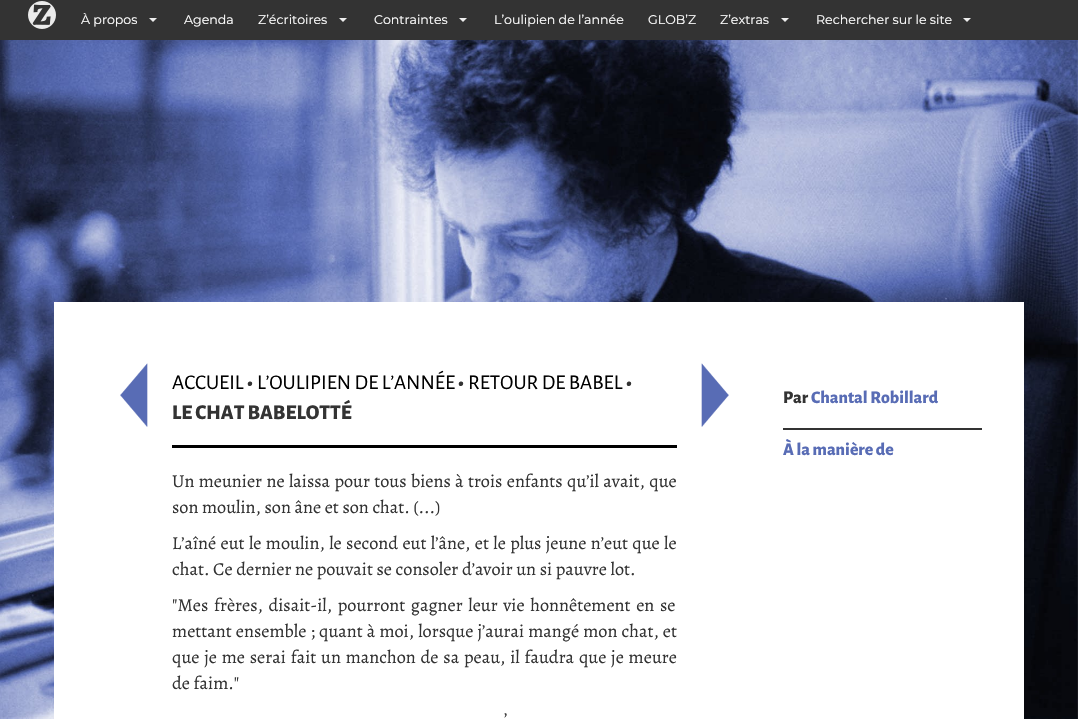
#include "include/core/SkBlurTypes.h"
#include "include/core/SkCanvas.h"
#include "include/core/SkData.h"
#include "include/core/SkFont.h"
#include "include/core/SkFontMgr.h"
#include "include/core/SkImage.h"
#include "include/core/SkMaskFilter.h"
#include "include/core/SkPaint.h"
#include "include/core/SkPathBuilder.h"
#include "include/core/SkTextBlob.h"
#include "include/effects/SkDashPathEffect.h"
#include "include/effects/SkGradientShader.h"
#include "include/utils/SkParsePath.h"

extern sk_sp<SkFontMgr> fontMgr;

void draw(SkCanvas* canvas) {
  SkPaint p;
  p.setAntiAlias(true);
  auto spacedText = [&](const char* s, float x, float y, const SkFont& font, const SkPaint& ink, float letter, float word) {
    std::vector<SkGlyphID> glyphs(font.countText(s, strlen(s), SkTextEncoding::kUTF8));
    std::vector<float> xs(glyphs.size());
    font.textToGlyphs(s, strlen(s), SkTextEncoding::kUTF8, glyphs);
    font.getXPos(glyphs, xs, x);
    float extra = 0;
    for (size_t i = 0; i < glyphs.size(); i++) {
      xs[i] += extra;
      extra += letter + word * (glyphs[i] == font.unicharToGlyph(' '));
    }
    canvas->drawTextBlob(SkTextBlob::MakeFromPosHGlyphs(glyphs, xs, y, font), 0, 0, ink);
  };
  canvas->clear(SK_ColorWHITE);
  canvas->drawImageRect(SkImages::DeferredFromEncodedData(SkData::MakeFromFileName("images/1.png")), SkRect::MakeLTRB(0, 40, 1078, 719), SkSamplingOptions());
  p.setColor(SkColorSetRGB(51, 51, 51));
  canvas->drawRect(SkRect::MakeLTRB(0, 0, 1078, 40), p);
  canvas->drawImageRect(SkImages::DeferredFromEncodedData(SkData::MakeFromFileName("images/2.png")), SkRect::MakeLTRB(28, 1, 56, 29), SkSamplingOptions());
  p.setColor(SkColorSetRGB(238, 238, 238));
  canvas->drawPath(SkPathBuilder().moveTo(149, 18).lineTo(157, 18).lineTo(153, 22).close().detach(), p);
  canvas->drawPath(SkPathBuilder().moveTo(339, 18).lineTo(347, 18).lineTo(343, 22).close().detach(), p);
  canvas->drawPath(SkPathBuilder().moveTo(459, 18).lineTo(467, 18).lineTo(463, 22).close().detach(), p);
  canvas->drawPath(SkPathBuilder().moveTo(781, 18).lineTo(789, 18).lineTo(785, 22).close().detach(), p);
  canvas->drawPath(SkPathBuilder().moveTo(963, 18).lineTo(971, 18).lineTo(967, 22).close().detach(), p);
  p.setColor(SK_ColorWHITE);
  canvas->drawRect(SkRect::MakeLTRB(54, 302, 1024, 719), p);
  p.setColor(SkColorSetRGB(88, 108, 181));
  canvas->drawRect(SkRect::MakeLTRB(120, 363, 148, 427), p);
  canvas->drawImageRect(SkImages::DeferredFromEncodedData(SkData::MakeFromFileName("images/3.png")), SkRect::MakeLTRB(117, 358, 155, 431), SkSamplingOptions());
  canvas->drawRect(SkRect::MakeLTRB(701, 363, 729, 427), p);
  canvas->drawImageRect(SkImages::DeferredFromEncodedData(SkData::MakeFromFileName("images/4.png")), SkRect::MakeLTRB(694, 358, 732, 431), SkSamplingOptions());
  p.setColor(SK_ColorBLACK);
  canvas->drawRect(SkRect::MakeLTRB(172, 445, 677, 448), p);
  p.setColor(SkColorSetRGB(51, 51, 51));
  canvas->drawRect(SkRect::MakeLTRB(783, 428, 982, 430), p);
  SkFont font1(fontMgr->matchFamilyStyle("Montserrat", SkFontStyle::Normal()), 12.6f);
  font1.setSubpixel(true);
  p.setColor(SK_ColorWHITE);
  canvas->drawString("À propos", 81, 24, font1, p);
  canvas->drawString("Agenda", 184, 24, font1, p);
  canvas->drawString("Z’écritoires", 258, 24, font1, p);
  canvas->drawString("Contraintes", 374, 24, font1, p);
  canvas->drawString("L’oulipien de l’année", 494, 24, font1, p);
  canvas->drawString("GLOB’Z", 648, 24, font1, p);
  canvas->drawString("Z’extras", 720, 24, font1, p);
  canvas->drawString("Rechercher sur le site", 816, 24, font1, p);
  SkFont font2(fontMgr->matchFamilyStyle("Alegreya Sans", SkFontStyle::Normal()), 21);
  font2.setSubpixel(true);
  p.setColor(SK_ColorBLACK);
  canvas->drawString("ACCUEIL", 172, 389, font2, p);
  SkFont font3(fontMgr->matchFamilyStyle("Alegreya Sans", SkFontStyle(800, SkFontStyle::kNormal_Width, SkFontStyle::kUpright_Slant)), 21);
  font3.setSubpixel(true);
  p.setColor(SkColorSetRGB(51, 51, 51));
  canvas->drawString("•", 247, 389, font3, p);
  p.setColor(SK_ColorBLACK);
  canvas->drawString("L’OULIPIEN DE L’ANNÉE", 257, 389, font2, p);
  p.setColor(SkColorSetRGB(51, 51, 51));
  canvas->drawString("•", 458, 389, font3, p);
  p.setColor(SK_ColorBLACK);
  canvas->drawString("RETOUR DE BABEL", 468, 389, font2, p);
  p.setColor(SkColorSetRGB(51, 51, 51));
  canvas->drawString("•", 626, 389, font3, p);
  canvas->drawString("LE CHAT BABELOTTÉ", 172, 419, font3, p);
  SkFont font4(fontMgr->matchFamilyStyle("Alegreya", SkFontStyle::Normal()), 18.2f);
  font4.setSubpixel(true);
  spacedText("Un meunier ne laissa pour tous biens à trois enfants qu’il avait, que", 172, 487, font4, p, 0, 0.75f);
  canvas->drawString("son moulin, son âne et son chat. (...)", 172, 513, font4, p);
  spacedText("L’aîné eut le moulin, le second eut l’âne, et le plus jeune n’eut que le", 172, 549, font4, p, 0, 0.75f);
  canvas->drawString("chat. Ce dernier ne pouvait se consoler d’avoir un si pauvre lot.", 172, 575, font4, p);
  spacedText("\"Mes frères, disait-il, pourront gagner leur vie honnêtement en se", 172, 611, font4, p, 0, 2);
  spacedText("mettant ensemble ; quant à moi, lorsque j’aurai mangé mon chat, et", 172, 637, font4, p, 0, 0.5f);
  spacedText("que je me serai fait un manchon de sa peau, il faudra que je meure", 172, 663, font4, p, 0, 1.2f);
  canvas->drawString("de faim.\"", 172, 689, font4, p);
  canvas->drawString("’", 504, 725, font4, p);
  SkFont font5(fontMgr->matchFamilyStyle("Alegreya Sans", SkFontStyle(800, SkFontStyle::kNormal_Width, SkFontStyle::kUpright_Slant)), 17.75f);
  font5.setSubpixel(true);
  canvas->drawString("Par", 783, 403, font5, p);
  p.setColor(SkColorSetRGB(88, 108, 181));
  canvas->drawString("Chantal Robillard", 811, 403, font5, p);
  canvas->drawString("À la manière de", 783, 455, font5, p);
}
